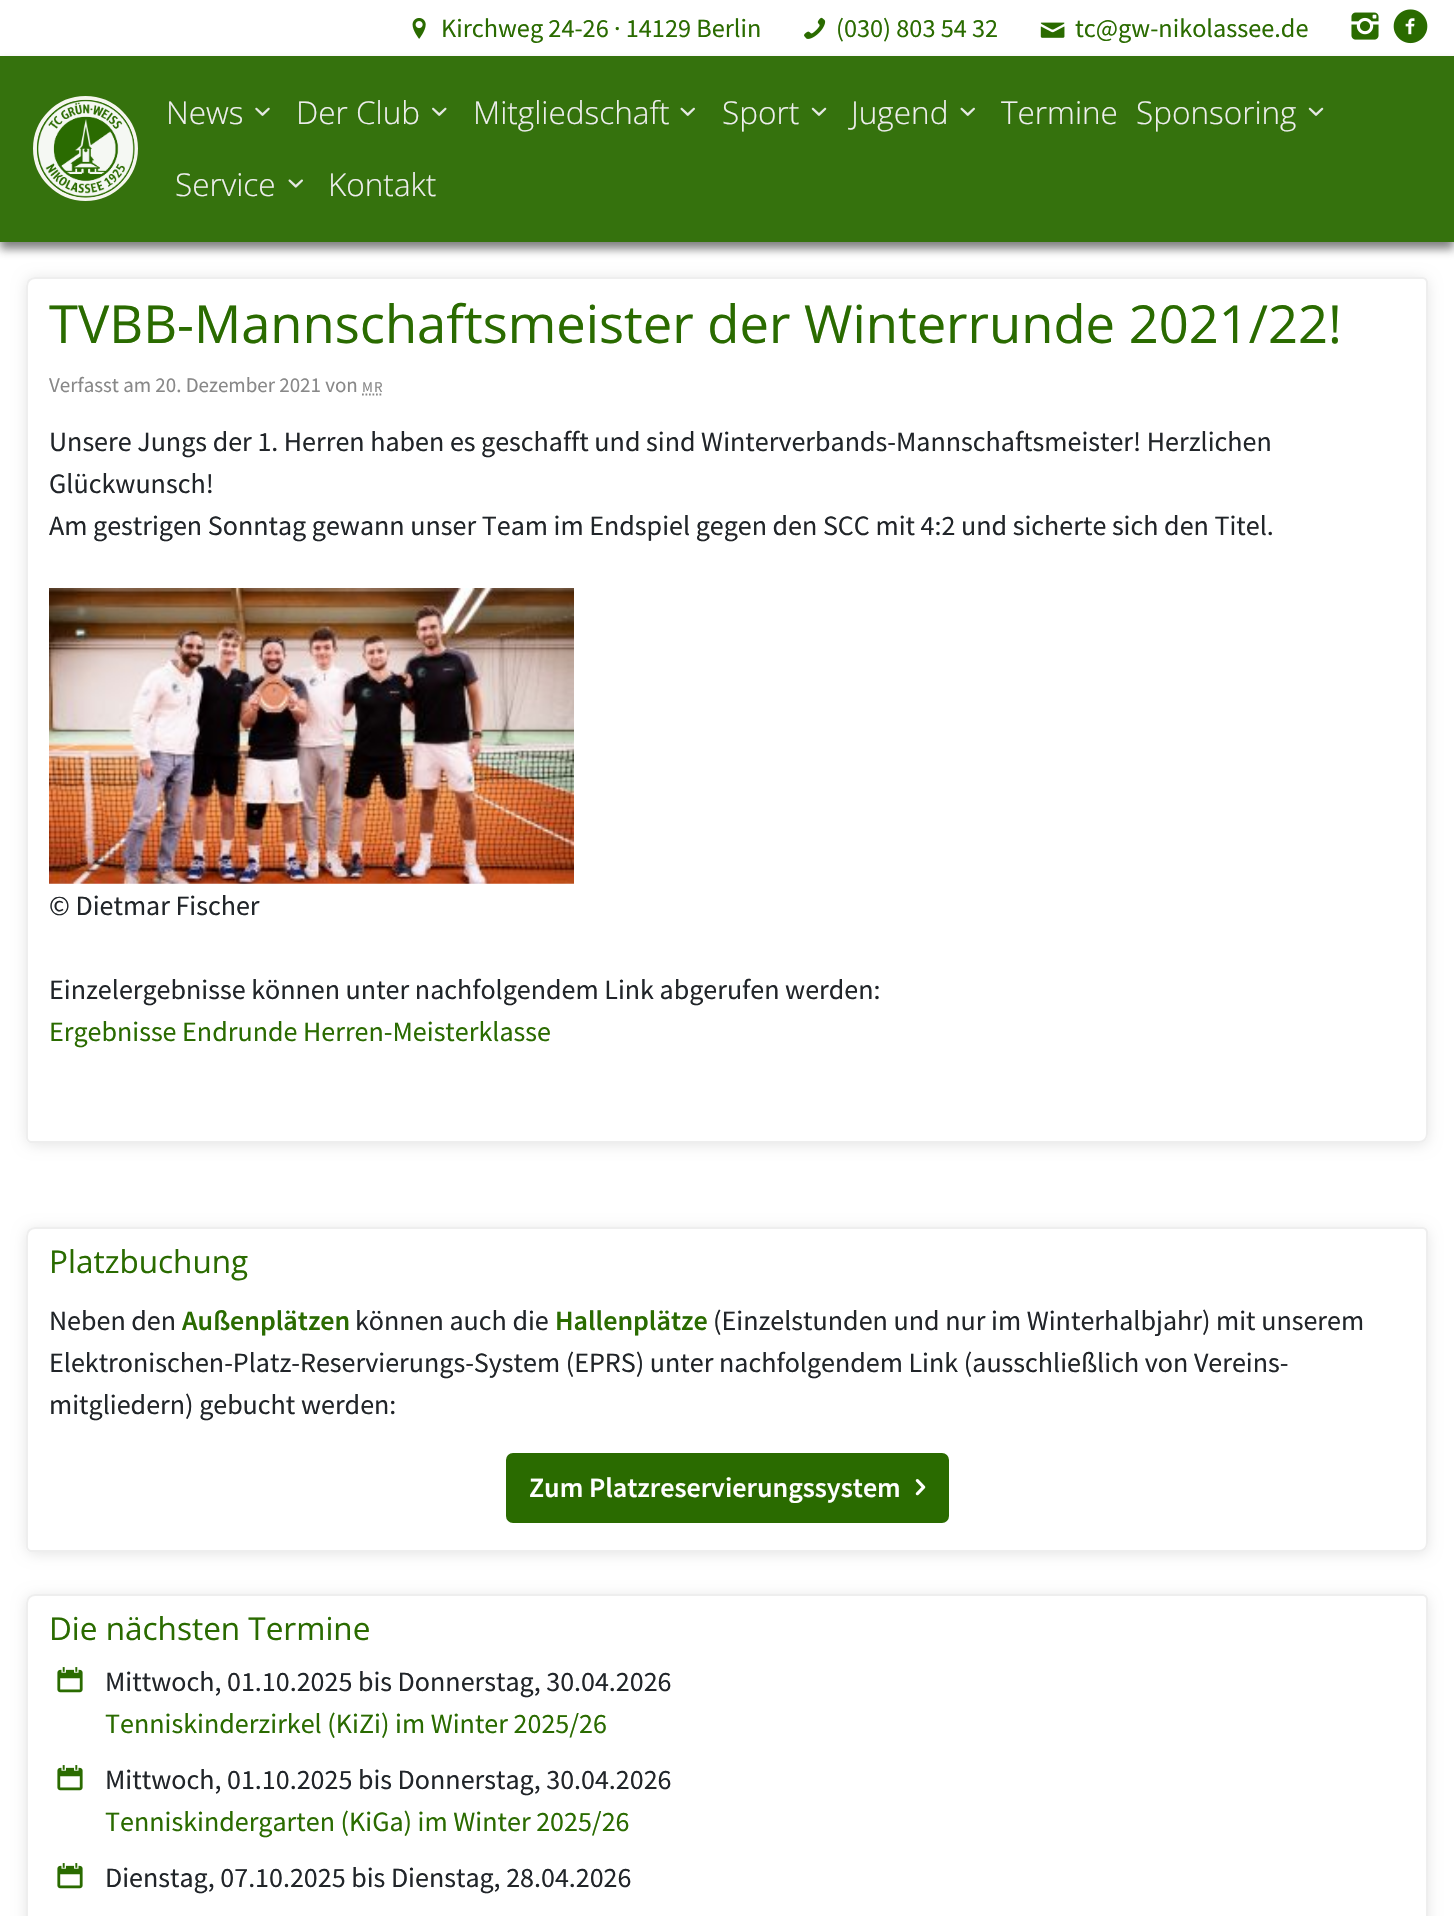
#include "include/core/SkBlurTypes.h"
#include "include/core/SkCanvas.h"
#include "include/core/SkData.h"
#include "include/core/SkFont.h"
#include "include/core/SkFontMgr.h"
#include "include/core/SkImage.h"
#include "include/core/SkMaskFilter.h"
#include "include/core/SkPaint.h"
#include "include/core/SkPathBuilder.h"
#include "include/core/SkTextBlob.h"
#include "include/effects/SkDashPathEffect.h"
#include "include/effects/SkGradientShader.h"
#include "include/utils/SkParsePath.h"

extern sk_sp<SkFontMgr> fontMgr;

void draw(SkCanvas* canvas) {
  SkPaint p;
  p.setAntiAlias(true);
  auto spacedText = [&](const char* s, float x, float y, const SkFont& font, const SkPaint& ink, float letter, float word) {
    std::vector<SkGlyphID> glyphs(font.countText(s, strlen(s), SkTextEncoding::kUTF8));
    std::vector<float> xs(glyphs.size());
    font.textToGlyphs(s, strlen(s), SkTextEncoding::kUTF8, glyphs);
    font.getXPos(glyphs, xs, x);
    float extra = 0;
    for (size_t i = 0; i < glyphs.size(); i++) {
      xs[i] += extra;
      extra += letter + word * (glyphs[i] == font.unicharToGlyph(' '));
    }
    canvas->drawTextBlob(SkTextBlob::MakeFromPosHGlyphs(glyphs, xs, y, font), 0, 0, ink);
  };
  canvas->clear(SK_ColorWHITE);
  canvas->drawImageRect(SkImages::DeferredFromEncodedData(SkData::MakeFromFileName("images/1.png")), SkRect::MakeLTRB(412, 18, 426, 39), SkSamplingOptions());
  canvas->drawImageRect(SkImages::DeferredFromEncodedData(SkData::MakeFromFileName("images/2.png")), SkRect::MakeLTRB(804, 17, 826, 39), SkSamplingOptions());
  canvas->drawImageRect(SkImages::DeferredFromEncodedData(SkData::MakeFromFileName("images/3.png")), SkRect::MakeLTRB(1040, 22, 1065, 38), SkSamplingOptions());
  canvas->drawImageRect(SkImages::DeferredFromEncodedData(SkData::MakeFromFileName("images/4.png")), SkRect::MakeLTRB(1351, 12, 1379, 40), SkSamplingOptions());
  canvas->drawImageRect(SkImages::DeferredFromEncodedData(SkData::MakeFromFileName("images/5.png")), SkRect::MakeLTRB(1393, 9, 1428, 44), SkSamplingOptions());
  p.setColor(SkColorSetARGB(153, 45, 45, 45));
  p.setMaskFilter(SkMaskFilter::MakeBlur(kNormal_SkBlurStyle, 4.5f));
  canvas->drawRect(SkRect::MakeLTRB(0, 63, 1454, 249), p);
  p.setMaskFilter(nullptr);
  p.setColor(SkColorSetRGB(53, 114, 13));
  canvas->drawRect(SkRect::MakeLTRB(0, 56, 1454, 242), p);
  p.setStyle(SkPaint::kStroke_Style);
  p.setStrokeWidth(4);
  p.setColor(SkColorSetRGB(246, 246, 239));
  canvas->drawCircle(85.5f, 148.5f, 50.5f, p);
  canvas->drawImageRect(SkImages::DeferredFromEncodedData(SkData::MakeFromFileName("images/6.png")), SkRect::MakeLTRB(36, 99, 135, 198), SkSamplingOptions());
  canvas->drawImageRect(SkImages::DeferredFromEncodedData(SkData::MakeFromFileName("images/7.png")), SkRect::MakeLTRB(255, 107, 270, 116), SkSamplingOptions());
  canvas->drawImageRect(SkImages::DeferredFromEncodedData(SkData::MakeFromFileName("images/8.png")), SkRect::MakeLTRB(432, 107, 447, 116), SkSamplingOptions());
  canvas->drawImageRect(SkImages::DeferredFromEncodedData(SkData::MakeFromFileName("images/9.png")), SkRect::MakeLTRB(680, 107, 695, 116), SkSamplingOptions());
  canvas->drawImageRect(SkImages::DeferredFromEncodedData(SkData::MakeFromFileName("images/10.png")), SkRect::MakeLTRB(811, 107, 827, 116), SkSamplingOptions());
  canvas->drawImageRect(SkImages::DeferredFromEncodedData(SkData::MakeFromFileName("images/9.png")), SkRect::MakeLTRB(960, 107, 975, 116), SkSamplingOptions());
  canvas->drawImageRect(SkImages::DeferredFromEncodedData(SkData::MakeFromFileName("images/10.png")), SkRect::MakeLTRB(1308, 107, 1324, 116), SkSamplingOptions());
  canvas->drawImageRect(SkImages::DeferredFromEncodedData(SkData::MakeFromFileName("images/11.png")), SkRect::MakeLTRB(288, 179, 303, 188), SkSamplingOptions());
  canvas->save();
  canvas->clipPath(SkPathBuilder(SkPathFillType::kEvenOdd).moveTo(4, 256).lineTo(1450, 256).lineTo(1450, 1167).lineTo(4, 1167).close().moveTo(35, 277).lineTo(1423, 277).cubicTo(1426, 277, 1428, 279, 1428, 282).lineTo(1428, 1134).cubicTo(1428, 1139, 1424, 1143, 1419, 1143).lineTo(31, 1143).cubicTo(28, 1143, 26, 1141, 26, 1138).lineTo(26, 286).cubicTo(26, 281, 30, 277, 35, 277).close().detach(), true);
  p.setStyle(SkPaint::kFill_Style);
  p.setColor(SkColorSetARGB(26, 0, 0, 0));
  p.setMaskFilter(SkMaskFilter::MakeBlur(kNormal_SkBlurStyle, 7));
  canvas->drawRoundRect(SkRect::MakeLTRB(26, 278, 1428, 1145), 9, 9, p);
  p.setMaskFilter(nullptr);
  canvas->restore();
  p.setStyle(SkPaint::kStroke_Style);
  p.setStrokeWidth(2);
  p.setColor(SkColorSetRGB(238, 238, 238));
  canvas->drawPath(SkPathBuilder().moveTo(35, 278).lineTo(1423, 278).cubicTo(1425, 278, 1427, 280, 1427, 282).lineTo(1427, 1134).cubicTo(1427, 1138.5f, 1423.5f, 1142, 1419, 1142).lineTo(31, 1142).cubicTo(29, 1142, 27, 1140, 27, 1138).lineTo(27, 286).cubicTo(27, 281.5f, 30.5f, 278, 35, 278).close().detach(), p);
  p.setStrokeWidth(1.8f);
  p.setColor(SkColorSetRGB(136, 136, 136));
  p.setPathEffect(SkDashPathEffect::Make({{1.75f, 1.75f}}, 0));
  canvas->drawPath(SkPathBuilder().moveTo(362, 394.5f).lineTo(383, 394.5f).detach(), p);
  p.setPathEffect(nullptr);
  canvas->drawImageRect(SkImages::DeferredFromEncodedData(SkData::MakeFromFileName("images/12.png")), SkRect::MakeLTRB(49, 588, 574, 884), SkSamplingOptions());
  canvas->save();
  canvas->clipPath(SkPathBuilder(SkPathFillType::kEvenOdd).moveTo(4, 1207).lineTo(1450, 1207).lineTo(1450, 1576).lineTo(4, 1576).close().moveTo(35, 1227).lineTo(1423, 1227).cubicTo(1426, 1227, 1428, 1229, 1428, 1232).lineTo(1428, 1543).cubicTo(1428, 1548, 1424, 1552, 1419, 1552).lineTo(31, 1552).cubicTo(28, 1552, 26, 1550, 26, 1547).lineTo(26, 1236).cubicTo(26, 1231, 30, 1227, 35, 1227).close().detach(), true);
  p.setStyle(SkPaint::kFill_Style);
  p.setColor(SkColorSetARGB(26, 0, 0, 0));
  p.setMaskFilter(SkMaskFilter::MakeBlur(kNormal_SkBlurStyle, 7));
  canvas->drawRoundRect(SkRect::MakeLTRB(26, 1229, 1428, 1554), 9, 9, p);
  p.setMaskFilter(nullptr);
  canvas->restore();
  p.setStyle(SkPaint::kStroke_Style);
  p.setStrokeWidth(2);
  p.setColor(SkColorSetRGB(238, 238, 238));
  canvas->drawPath(SkPathBuilder().moveTo(35, 1228).lineTo(1423, 1228).cubicTo(1425, 1228, 1427, 1230, 1427, 1232).lineTo(1427, 1543).cubicTo(1427, 1547.5f, 1423.5f, 1551, 1419, 1551).lineTo(31, 1551).cubicTo(29, 1551, 27, 1549, 27, 1547).lineTo(27, 1236).cubicTo(27, 1231.5f, 30.5f, 1228, 35, 1228).close().detach(), p);
  p.setStyle(SkPaint::kFill_Style);
  p.setColor(SkColorSetRGB(42, 107, 0));
  canvas->drawRoundRect(SkRect::MakeLTRB(507, 1454, 948, 1522), 6, 6, p);
  p.setStyle(SkPaint::kStroke_Style);
  canvas->drawRoundRect(SkRect::MakeLTRB(507, 1454, 948, 1522), 6, 6, p);
  canvas->drawImageRect(SkImages::DeferredFromEncodedData(SkData::MakeFromFileName("images/13.png")), SkRect::MakeLTRB(915, 1479, 926, 1496), SkSamplingOptions());
  canvas->save();
  canvas->clipPath(SkPathBuilder(SkPathFillType::kEvenOdd).moveTo(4, 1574).lineTo(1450, 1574).lineTo(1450, 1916).lineTo(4, 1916).close().moveTo(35, 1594).lineTo(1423, 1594).cubicTo(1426, 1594, 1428, 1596, 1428, 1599).lineTo(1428, 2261).cubicTo(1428, 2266, 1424, 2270, 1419, 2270).lineTo(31, 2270).cubicTo(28, 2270, 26, 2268, 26, 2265).lineTo(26, 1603).cubicTo(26, 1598, 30, 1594, 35, 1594).close().detach(), true);
  p.setStyle(SkPaint::kFill_Style);
  p.setColor(SkColorSetARGB(26, 0, 0, 0));
  p.setMaskFilter(SkMaskFilter::MakeBlur(kNormal_SkBlurStyle, 7));
  canvas->drawRoundRect(SkRect::MakeLTRB(26, 1596, 1428, 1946), 9, 9, p);
  p.setMaskFilter(nullptr);
  canvas->restore();
  p.setStyle(SkPaint::kStroke_Style);
  p.setColor(SkColorSetRGB(238, 238, 238));
  canvas->drawPath(SkPathBuilder().moveTo(35, 1595).lineTo(1423, 1595).cubicTo(1425, 1595, 1427, 1597, 1427, 1599).lineTo(1427, 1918).cubicTo(1427, 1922.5f, 1423.5f, 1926, 1419, 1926).lineTo(31, 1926).cubicTo(29, 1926, 27, 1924, 27, 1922).lineTo(27, 1603).cubicTo(27, 1598.5f, 30.5f, 1595, 35, 1595).close().detach(), p);
  canvas->drawImageRect(SkImages::DeferredFromEncodedData(SkData::MakeFromFileName("images/14.png")), SkRect::MakeLTRB(57, 1667, 83, 1693), SkSamplingOptions());
  canvas->drawImageRect(SkImages::DeferredFromEncodedData(SkData::MakeFromFileName("images/14.png")), SkRect::MakeLTRB(57, 1765, 83, 1791), SkSamplingOptions());
  canvas->drawImageRect(SkImages::DeferredFromEncodedData(SkData::MakeFromFileName("images/14.png")), SkRect::MakeLTRB(57, 1863, 83, 1889), SkSamplingOptions());
  SkFont font1(fontMgr->matchFamilyStyle("Source Sans Pro", SkFontStyle::Normal()), 26.25f);
  font1.setSubpixel(true);
  p.setStyle(SkPaint::kFill_Style);
  p.setColor(SkColorSetRGB(42, 107, 0));
  canvas->drawString("Kirchweg 24-26 · 14129 Berlin", 441, 37, font1, p);
  canvas->drawString("(030) 803 54 32", 836, 37, font1, p);
  canvas->drawString("tc@gw-nikolassee.de", 1075, 37, font1, p);
  SkFont font2(fontMgr->matchFamilyStyle("Open Sans", SkFontStyle(300, SkFontStyle::kNormal_Width, SkFontStyle::kUpright_Slant)), 31.5f);
  font2.setSubpixel(true);
  p.setColor(SkColorSetRGB(239, 239, 239));
  canvas->drawString("News", 166, 124, font2, p);
  canvas->drawString("Der Club", 296, 124, font2, p);
  canvas->drawString("Mitgliedschaft", 473, 124, font2, p);
  canvas->drawString("Sport", 722, 124, font2, p);
  canvas->drawString("Jugend", 851, 124, font2, p);
  canvas->drawString("Termine", 1001, 124, font2, p);
  canvas->drawString("Sponsoring", 1136, 124, font2, p);
  canvas->drawString("Service", 175, 196, font2, p);
  canvas->drawString("Kontakt", 328, 196, font2, p);
  SkFont font3(fontMgr->matchFamilyStyle("Open Sans", SkFontStyle::Normal()), 52.5f);
  font3.setSubpixel(true);
  p.setColor(SkColorSetRGB(42, 107, 0));
  canvas->drawString("TVBB-Mannschaftsmeister der Winterrunde 2021/22!", 49, 343, font3, p);
  SkFont font4(fontMgr->matchFamilyStyle("Source Sans Pro", SkFontStyle::Normal()), 21);
  font4.setSubpixel(true);
  p.setColor(SkColorSetRGB(136, 136, 136));
  canvas->drawString("Verfasst am 20. Dezember 2021 von", 49, 392, font4, p);
  SkFont font5(fontMgr->matchFamilyStyle("Source Sans Pro", SkFontStyle::Normal()), 15);
  font5.setSubpixel(true);
  spacedText("MR", 362, 392, font5, p, 1, 0);
  SkFont font6(fontMgr->matchFamilyStyle("Source Sans Pro", SkFontStyle::Normal()), 28);
  font6.setSubpixel(true);
  p.setColor(SkColorSetRGB(33, 37, 41));
  canvas->drawString("Unsere Jungs der 1. Herren haben es geschafft und sind Winterverbands-Mannschaftsmeister! Herzlichen", 49, 451, font6, p);
  canvas->drawString("Glückwunsch!", 49, 493, font6, p);
  canvas->drawString("Am gestrigen Sonntag gewann unser Team im Endspiel gegen den SCC mit 4:2 und sicherte sich den Titel.", 49, 535, font6, p);
  canvas->drawString("© Dietmar Fischer", 49, 915, font6, p);
  canvas->drawString("Einzelergebnisse können unter nachfolgendem Link abgerufen werden:", 49, 999, font6, p);
  p.setColor(SkColorSetRGB(42, 107, 0));
  canvas->drawString("Ergebnisse Endrunde Herren-Meisterklasse", 49, 1041, font6, p);
  SkFont font7(fontMgr->matchFamilyStyle("Open Sans", SkFontStyle::Normal()), 31.5f);
  font7.setSubpixel(true);
  canvas->drawString("Platzbuchung", 49, 1273, font7, p);
  p.setColor(SkColorSetRGB(33, 37, 41));
  canvas->drawString("Neben den", 49, 1330, font6, p);
  SkFont font8(fontMgr->matchFamilyStyle("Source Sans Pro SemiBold", SkFontStyle(600, SkFontStyle::kNormal_Width, SkFontStyle::kUpright_Slant)), 28);
  font8.setSubpixel(true);
  p.setColor(SkColorSetRGB(42, 107, 0));
  canvas->drawString("Außenplätzen", 182, 1330, font8, p);
  p.setColor(SkColorSetRGB(33, 37, 41));
  canvas->drawString("können auch die", 355, 1330, font6, p);
  p.setColor(SkColorSetRGB(42, 107, 0));
  canvas->drawString("Hallenplätze", 555, 1330, font8, p);
  p.setColor(SkColorSetRGB(33, 37, 41));
  canvas->drawString("(Einzelstunden und nur im Winterhalbjahr) mit unserem", 713, 1330, font6, p);
  canvas->drawString("Elektronischen-Platz-Reservierungs-System (EPRS) unter nachfolgendem Link (ausschließlich von Vereins-", 49, 1372, font6, p);
  canvas->drawString("mitgliedern) gebucht werden:", 49, 1414, font6, p);
  p.setColor(SK_ColorWHITE);
  canvas->drawString("Zum Platzreservierungssystem", 529, 1497, font8, p);
  p.setColor(SkColorSetRGB(42, 107, 0));
  canvas->drawString("Die nächsten Termine", 49, 1640, font7, p);
  p.setColor(SkColorSetRGB(33, 37, 41));
  canvas->drawString("Mittwoch, 01.10.2025 bis Donnerstag, 30.04.2026", 105, 1691, font6, p);
  p.setColor(SkColorSetRGB(42, 107, 0));
  canvas->drawString("Tenniskinderzirkel (KiZi) im Winter 2025/26", 105, 1733, font6, p);
  p.setColor(SkColorSetRGB(33, 37, 41));
  canvas->drawString("Mittwoch, 01.10.2025 bis Donnerstag, 30.04.2026", 105, 1789, font6, p);
  p.setColor(SkColorSetRGB(42, 107, 0));
  canvas->drawString("Tenniskindergarten (KiGa) im Winter 2025/26", 105, 1831, font6, p);
  p.setColor(SkColorSetRGB(33, 37, 41));
  canvas->drawString("Dienstag, 07.10.2025 bis Dienstag, 28.04.2026", 105, 1887, font6, p);
}
